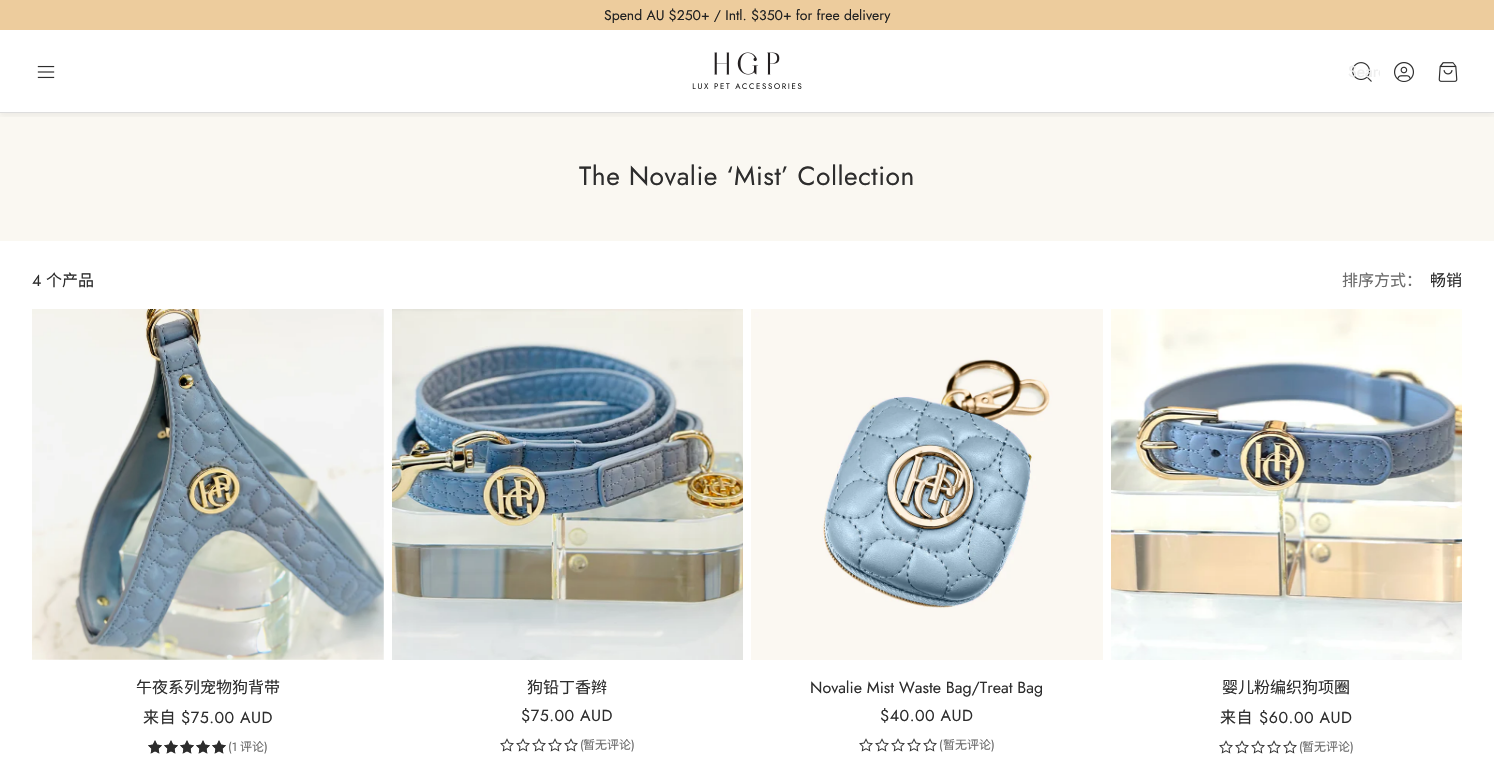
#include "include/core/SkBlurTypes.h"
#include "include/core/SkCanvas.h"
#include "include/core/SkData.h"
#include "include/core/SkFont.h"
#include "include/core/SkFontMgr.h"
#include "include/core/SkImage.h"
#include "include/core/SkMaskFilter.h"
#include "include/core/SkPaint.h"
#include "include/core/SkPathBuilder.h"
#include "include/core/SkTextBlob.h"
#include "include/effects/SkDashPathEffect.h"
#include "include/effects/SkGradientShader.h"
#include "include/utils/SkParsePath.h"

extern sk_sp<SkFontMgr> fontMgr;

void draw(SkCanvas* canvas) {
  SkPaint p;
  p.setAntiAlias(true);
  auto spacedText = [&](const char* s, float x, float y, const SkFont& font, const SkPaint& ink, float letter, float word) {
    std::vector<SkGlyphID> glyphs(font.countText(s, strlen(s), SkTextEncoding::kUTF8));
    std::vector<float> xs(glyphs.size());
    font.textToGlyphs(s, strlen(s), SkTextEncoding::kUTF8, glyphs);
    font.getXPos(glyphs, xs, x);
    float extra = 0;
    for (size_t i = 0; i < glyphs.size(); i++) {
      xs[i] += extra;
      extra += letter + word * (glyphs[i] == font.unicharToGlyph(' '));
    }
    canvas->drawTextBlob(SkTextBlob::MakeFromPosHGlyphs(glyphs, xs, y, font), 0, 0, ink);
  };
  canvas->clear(SK_ColorWHITE);
  p.setColor(SkColorSetRGB(237, 204, 157));
  canvas->drawRect(SkRect::MakeLTRB(0, 0, 1494, 30), p);
  p.setColor(SkColorSetRGB(250, 248, 242));
  canvas->drawRect(SkRect::MakeLTRB(0, 113, 1494, 241), p);
  canvas->save();
  canvas->clipRect(SkRect::MakeLTRB(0, 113, 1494, 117));
  p.setColor(SkColorSetARGB(13, 0, 0, 0));
  p.setMaskFilter(SkMaskFilter::MakeBlur(kNormal_SkBlurStyle, 3));
  canvas->drawRect(SkRect::MakeLTRB(0, 33, 1494, 116), p);
  p.setMaskFilter(nullptr);
  canvas->restore();
  p.setColor(SkColorSetRGB(221, 221, 221));
  canvas->drawRect(SkRect::MakeLTRB(0, 112, 1494, 113), p);
  canvas->drawImageRect(SkImages::DeferredFromEncodedData(SkData::MakeFromFileName("images/1.png")), SkRect::MakeLTRB(37, 65, 55, 79), SkSamplingOptions());
  canvas->drawImageRect(SkImages::DeferredFromEncodedData(SkData::MakeFromFileName("images/2.png")), SkRect::MakeLTRB(692, 52, 802, 89), SkSamplingOptions());
  canvas->drawImageRect(SkImages::DeferredFromEncodedData(SkData::MakeFromFileName("images/3.png")), SkRect::MakeLTRB(1352, 62, 1372, 82), SkSamplingOptions());
  canvas->drawImageRect(SkImages::DeferredFromEncodedData(SkData::MakeFromFileName("images/4.png")), SkRect::MakeLTRB(1394, 62, 1414, 82), SkSamplingOptions());
  canvas->drawImageRect(SkImages::DeferredFromEncodedData(SkData::MakeFromFileName("images/5.png")), SkRect::MakeLTRB(1438, 62, 1458, 82), SkSamplingOptions());
  canvas->drawImageRect(SkImages::DeferredFromEncodedData(SkData::MakeFromFileName("images/6.png")), SkRect::MakeLTRB(32, 309, 384, 660), SkSamplingOptions());
  canvas->drawImageRect(SkImages::DeferredFromEncodedData(SkData::MakeFromFileName("images/7.png")), SkRect::MakeLTRB(148, 740, 162, 754), SkSamplingOptions());
  canvas->drawImageRect(SkImages::DeferredFromEncodedData(SkData::MakeFromFileName("images/7.png")), SkRect::MakeLTRB(164, 740, 178, 754), SkSamplingOptions());
  canvas->drawImageRect(SkImages::DeferredFromEncodedData(SkData::MakeFromFileName("images/7.png")), SkRect::MakeLTRB(180, 740, 194, 754), SkSamplingOptions());
  canvas->drawImageRect(SkImages::DeferredFromEncodedData(SkData::MakeFromFileName("images/7.png")), SkRect::MakeLTRB(196, 740, 210, 754), SkSamplingOptions());
  canvas->drawImageRect(SkImages::DeferredFromEncodedData(SkData::MakeFromFileName("images/7.png")), SkRect::MakeLTRB(212, 740, 226, 754), SkSamplingOptions());
  canvas->drawImageRect(SkImages::DeferredFromEncodedData(SkData::MakeFromFileName("images/8.png")), SkRect::MakeLTRB(148, 740, 162, 754), SkSamplingOptions());
  canvas->drawImageRect(SkImages::DeferredFromEncodedData(SkData::MakeFromFileName("images/8.png")), SkRect::MakeLTRB(164, 740, 178, 754), SkSamplingOptions());
  canvas->drawImageRect(SkImages::DeferredFromEncodedData(SkData::MakeFromFileName("images/8.png")), SkRect::MakeLTRB(180, 740, 194, 754), SkSamplingOptions());
  canvas->drawImageRect(SkImages::DeferredFromEncodedData(SkData::MakeFromFileName("images/8.png")), SkRect::MakeLTRB(196, 740, 210, 754), SkSamplingOptions());
  canvas->drawImageRect(SkImages::DeferredFromEncodedData(SkData::MakeFromFileName("images/8.png")), SkRect::MakeLTRB(212, 740, 226, 754), SkSamplingOptions());
  canvas->drawImageRect(SkImages::DeferredFromEncodedData(SkData::MakeFromFileName("images/9.png")), SkRect::MakeLTRB(392, 309, 743, 660), SkSamplingOptions());
  canvas->drawImageRect(SkImages::DeferredFromEncodedData(SkData::MakeFromFileName("images/7.png")), SkRect::MakeLTRB(500, 738, 514, 752), SkSamplingOptions());
  canvas->drawImageRect(SkImages::DeferredFromEncodedData(SkData::MakeFromFileName("images/7.png")), SkRect::MakeLTRB(516, 738, 530, 752), SkSamplingOptions());
  canvas->drawImageRect(SkImages::DeferredFromEncodedData(SkData::MakeFromFileName("images/7.png")), SkRect::MakeLTRB(532, 738, 546, 752), SkSamplingOptions());
  canvas->drawImageRect(SkImages::DeferredFromEncodedData(SkData::MakeFromFileName("images/7.png")), SkRect::MakeLTRB(548, 738, 562, 752), SkSamplingOptions());
  canvas->drawImageRect(SkImages::DeferredFromEncodedData(SkData::MakeFromFileName("images/7.png")), SkRect::MakeLTRB(564, 738, 578, 752), SkSamplingOptions());
  canvas->drawImageRect(SkImages::DeferredFromEncodedData(SkData::MakeFromFileName("images/10.png")), SkRect::MakeLTRB(751, 309, 1103, 660), SkSamplingOptions());
  canvas->drawImageRect(SkImages::DeferredFromEncodedData(SkData::MakeFromFileName("images/7.png")), SkRect::MakeLTRB(859, 738, 873, 752), SkSamplingOptions());
  canvas->drawImageRect(SkImages::DeferredFromEncodedData(SkData::MakeFromFileName("images/7.png")), SkRect::MakeLTRB(875, 738, 889, 752), SkSamplingOptions());
  canvas->drawImageRect(SkImages::DeferredFromEncodedData(SkData::MakeFromFileName("images/7.png")), SkRect::MakeLTRB(891, 738, 905, 752), SkSamplingOptions());
  canvas->drawImageRect(SkImages::DeferredFromEncodedData(SkData::MakeFromFileName("images/7.png")), SkRect::MakeLTRB(907, 738, 921, 752), SkSamplingOptions());
  canvas->drawImageRect(SkImages::DeferredFromEncodedData(SkData::MakeFromFileName("images/7.png")), SkRect::MakeLTRB(923, 738, 937, 752), SkSamplingOptions());
  canvas->drawImageRect(SkImages::DeferredFromEncodedData(SkData::MakeFromFileName("images/11.png")), SkRect::MakeLTRB(1111, 309, 1462, 660), SkSamplingOptions());
  canvas->drawImageRect(SkImages::DeferredFromEncodedData(SkData::MakeFromFileName("images/7.png")), SkRect::MakeLTRB(1219, 740, 1233, 754), SkSamplingOptions());
  canvas->drawImageRect(SkImages::DeferredFromEncodedData(SkData::MakeFromFileName("images/7.png")), SkRect::MakeLTRB(1235, 740, 1249, 754), SkSamplingOptions());
  canvas->drawImageRect(SkImages::DeferredFromEncodedData(SkData::MakeFromFileName("images/7.png")), SkRect::MakeLTRB(1251, 740, 1265, 754), SkSamplingOptions());
  canvas->drawImageRect(SkImages::DeferredFromEncodedData(SkData::MakeFromFileName("images/7.png")), SkRect::MakeLTRB(1267, 740, 1281, 754), SkSamplingOptions());
  canvas->drawImageRect(SkImages::DeferredFromEncodedData(SkData::MakeFromFileName("images/7.png")), SkRect::MakeLTRB(1283, 740, 1297, 754), SkSamplingOptions());
  SkFont font1(fontMgr->matchFamilyStyle("Jost", SkFontStyle::Normal()), 14);
  font1.setSubpixel(true);
  p.setColor(SkColorSetRGB(33, 33, 33));
  canvas->drawString("Spend AU $250+ / Intl. $350+ for free delivery", 604, 20, font1, p);
  canvas->save();
  canvas->clipRect(SkRect::MakeLTRB(1348, 62, 1380, 81));
  SkFont font2(fontMgr->matchFamilyStyle("Jost", SkFontStyle::Normal()), 16);
  font2.setSubpixel(true);
  p.setColor(SkColorSetRGB(238, 238, 238));
  canvas->drawString("Searc", 1348, 77, font2, p);
  canvas->restore();
  SkFont font3(fontMgr->matchFamilyStyle("Jost", SkFontStyle::Normal()), 26.4f);
  font3.setSubpixel(true);
  p.setColor(SkColorSetRGB(45, 45, 45));
  spacedText("The Novalie ‘Mist’ Collection", 579, 185, font3, p, 0.5f, 0);
  canvas->drawString("4", 32, 286, font2, p);
  SkFont font4(fontMgr->matchFamilyStyle("Noto Sans CJK SC", SkFontStyle::Normal()), 16);
  font4.setSubpixel(true);
  canvas->drawString("个产品", 46, 286, font4, p);
  p.setColor(SkColorSetRGB(107, 107, 107));
  canvas->drawString("排序方式：", 1342, 286, font4, p);
  p.setColor(SkColorSetRGB(45, 45, 45));
  canvas->drawString("畅销", 1430, 286, font4, p);
  canvas->drawString("午夜系列宠物狗背带", 136, 693, font4, p);
  spacedText("来自", 143, 723, font4, p, 0.5f, 0);
  spacedText("$75.00 AUD", 181, 723, font2, p, 0.5f, 0);
  SkFont font5(fontMgr->matchFamilyStyle("Jost", SkFontStyle::Normal()), 12);
  font5.setSubpixel(true);
  p.setColor(SkColorSetRGB(107, 107, 107));
  canvas->drawString("(1", 228, 751, font5, p);
  SkFont font6(fontMgr->matchFamilyStyle("Noto Sans CJK SC", SkFontStyle::Normal()), 12);
  font6.setSubpixel(true);
  canvas->drawString("评论", 240, 751, font6, p);
  canvas->drawString(")", 264, 751, font5, p);
  p.setColor(SkColorSetRGB(45, 45, 45));
  canvas->drawString("狗铅丁香辫", 527, 693, font4, p);
  spacedText("$75.00 AUD", 521, 721, font2, p, 0.5f, 0);
  p.setColor(SkColorSetRGB(107, 107, 107));
  canvas->drawString("(", 580, 749, font5, p);
  canvas->drawString("暂无评论", 583, 749, font6, p);
  canvas->drawString(")", 631, 749, font5, p);
  p.setColor(SkColorSetRGB(45, 45, 45));
  canvas->drawString("Novalie Mist Waste Bag/Treat Bag", 810, 693, font2, p);
  spacedText("$40.00 AUD", 880, 721, font2, p, 0.5f, 0);
  p.setColor(SkColorSetRGB(107, 107, 107));
  canvas->drawString("(", 939, 749, font5, p);
  canvas->drawString("暂无评论", 943, 749, font6, p);
  canvas->drawString(")", 991, 749, font5, p);
  p.setColor(SkColorSetRGB(45, 45, 45));
  canvas->drawString("婴儿粉编织狗项圈", 1222, 693, font4, p);
  spacedText("来自", 1220, 723, font4, p, 0.5f, 0);
  spacedText("$60.00 AUD", 1259, 723, font2, p, 0.5f, 0);
  p.setColor(SkColorSetRGB(107, 107, 107));
  canvas->drawString("(", 1299, 751, font5, p);
  canvas->drawString("暂无评论", 1302, 751, font6, p);
  canvas->drawString(")", 1350, 751, font5, p);
}
